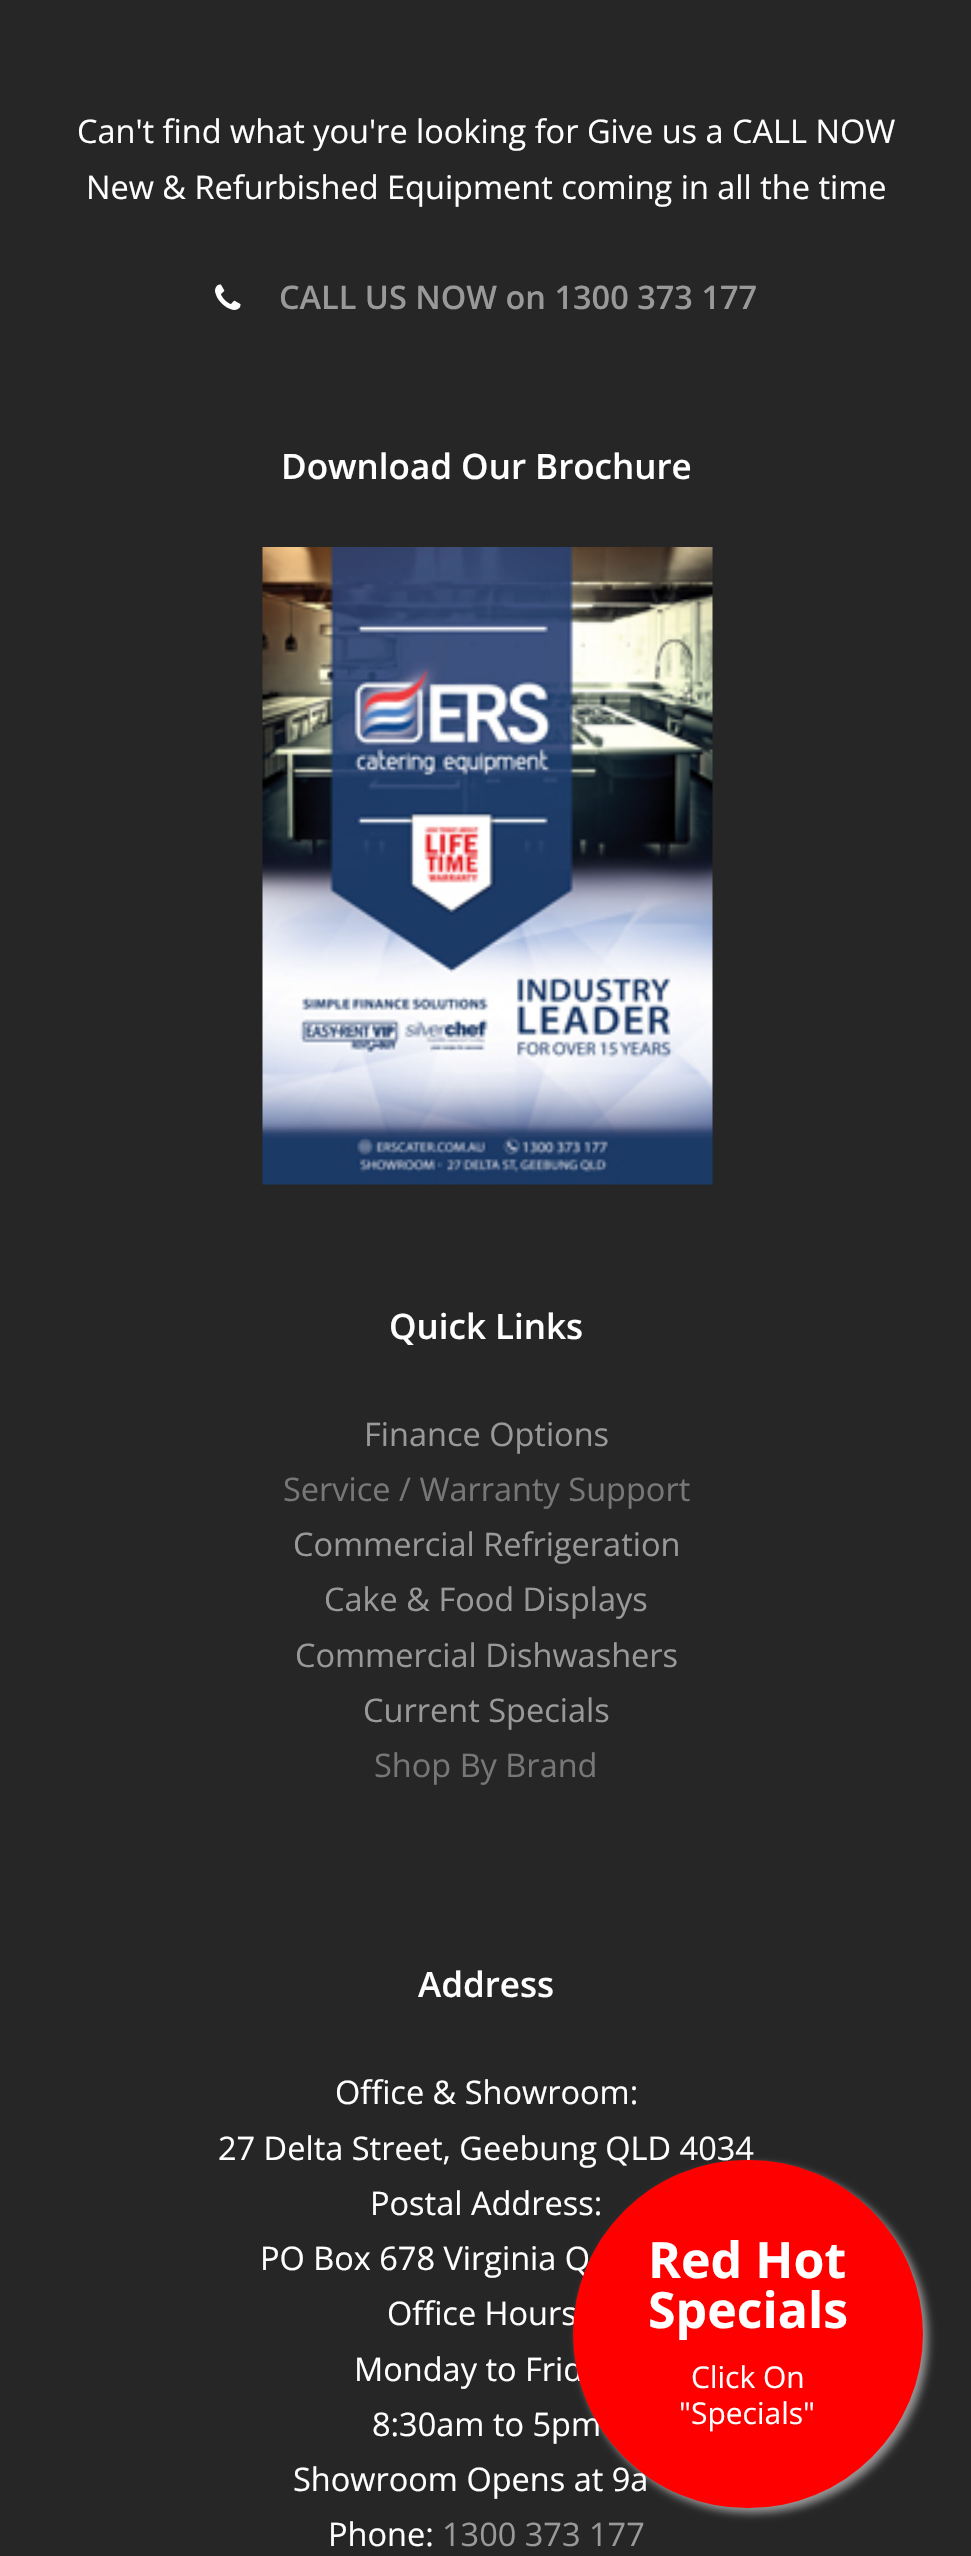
#include "include/core/SkBlurTypes.h"
#include "include/core/SkCanvas.h"
#include "include/core/SkData.h"
#include "include/core/SkFont.h"
#include "include/core/SkFontMgr.h"
#include "include/core/SkImage.h"
#include "include/core/SkMaskFilter.h"
#include "include/core/SkPaint.h"
#include "include/core/SkPathBuilder.h"
#include "include/core/SkTextBlob.h"
#include "include/effects/SkDashPathEffect.h"
#include "include/effects/SkGradientShader.h"
#include "include/utils/SkParsePath.h"

extern sk_sp<SkFontMgr> fontMgr;

void draw(SkCanvas* canvas) {
  SkPaint p;
  p.setAntiAlias(true);
  canvas->clear(SkColorSetRGB(38, 38, 38));
  canvas->drawImageRect(SkImages::DeferredFromEncodedData(SkData::MakeFromFileName("images/1.png")), SkRect::MakeLTRB(215, 284, 241, 310), SkSamplingOptions());
  canvas->drawImageRect(SkImages::DeferredFromEncodedData(SkData::MakeFromFileName("images/2.png")), SkRect::MakeLTRB(262, 547, 713, 1185), SkSamplingOptions());
  p.setColor(SkColorSetRGB(153, 153, 153));
  p.setMaskFilter(SkMaskFilter::MakeBlur(kNormal_SkBlurStyle, 4));
  canvas->drawRoundRect(SkRect::MakeLTRB(578, 2165, 928, 2513), 174, 174, p);
  p.setMaskFilter(nullptr);
  SkFont font1(fontMgr->matchFamilyStyle("Open Sans", SkFontStyle::Normal()), 32.5f);
  font1.setSubpixel(true);
  p.setColor(SK_ColorWHITE);
  canvas->drawString("Can't find what you're looking for Give us a CALL NOW", 77, 143, font1, p);
  canvas->drawString("New & Refurbished Equipment coming in all the time", 86, 199, font1, p);
  SkFont font2(fontMgr->matchFamilyStyle("Open Sans", SkFontStyle(600, SkFontStyle::kNormal_Width, SkFontStyle::kUpright_Slant)), 32.5f);
  font2.setSubpixel(true);
  p.setColor(SkColorSetRGB(153, 153, 153));
  canvas->drawString("CALL US NOW on 1300 373 177", 279, 309, font2, p);
  SkFont font3(fontMgr->matchFamilyStyle("Open Sans", SkFontStyle(600, SkFontStyle::kNormal_Width, SkFontStyle::kUpright_Slant)), 35);
  font3.setSubpixel(true);
  p.setColor(SK_ColorWHITE);
  canvas->drawString("Download Our Brochure", 281, 479, font3, p);
  canvas->drawString("Quick Links", 389, 1339, font3, p);
  p.setColor(SkColorSetRGB(153, 153, 153));
  canvas->drawString("Finance Options", 364, 1446, font1, p);
  p.setColor(SkColorSetRGB(119, 119, 119));
  canvas->drawString("Service / Warranty Support", 283, 1501, font1, p);
  p.setColor(SkColorSetRGB(153, 153, 153));
  canvas->drawString("Commercial Refrigeration", 293, 1556, font1, p);
  canvas->drawString("Cake & Food Displays", 324, 1611, font1, p);
  canvas->drawString("Commercial Dishwashers", 295, 1667, font1, p);
  canvas->drawString("Current Specials", 363, 1722, font1, p);
  p.setColor(SkColorSetRGB(119, 119, 119));
  canvas->drawString("Shop By Brand", 374, 1777, font1, p);
  p.setColor(SK_ColorWHITE);
  canvas->drawString("Address", 418, 1997, font3, p);
  canvas->drawString("Office & Showroom:", 335, 2104, font1, p);
  canvas->drawString("27 Delta Street, Geebung QLD 4034", 218, 2160, font1, p);
  canvas->drawString("Postal Address:", 370, 2215, font1, p);
  canvas->drawString("PO Box 678 Virginia Q", 260, 2270, font1, p);
  canvas->drawString("Office Hours", 387, 2325, font1, p);
  canvas->drawString("Monday to Frid", 354, 2381, font1, p);
  canvas->drawString("8:30am to 5pm", 372, 2436, font1, p);
  canvas->drawString("Showroom Opens at 9a", 293, 2491, font1, p);
  canvas->drawString("Phone:", 328, 2546, font1, p);
  p.setColor(SkColorSetRGB(153, 153, 153));
  canvas->drawString("1300 373 177", 442, 2546, font1, p);
  p.setColor(SkColorSetRGB(255, 0, 0));
  canvas->drawRoundRect(SkRect::MakeLTRB(573, 2160, 923, 2508), 174, 174, p);
  SkFont font4(fontMgr->matchFamilyStyle("Open Sans", SkFontStyle::Bold()), 50);
  font4.setSubpixel(true);
  p.setColor(SK_ColorWHITE);
  canvas->drawString("Red Hot", 648, 2278, font4, p);
  canvas->drawString("Specials", 648, 2328, font4, p);
  SkFont font5(fontMgr->matchFamilyStyle("Open Sans", SkFontStyle::Normal()), 30);
  font5.setSubpixel(true);
  canvas->drawString("Click On", 691, 2388, font5, p);
  canvas->drawString("\"Specials\"", 679, 2424, font5, p);
}
